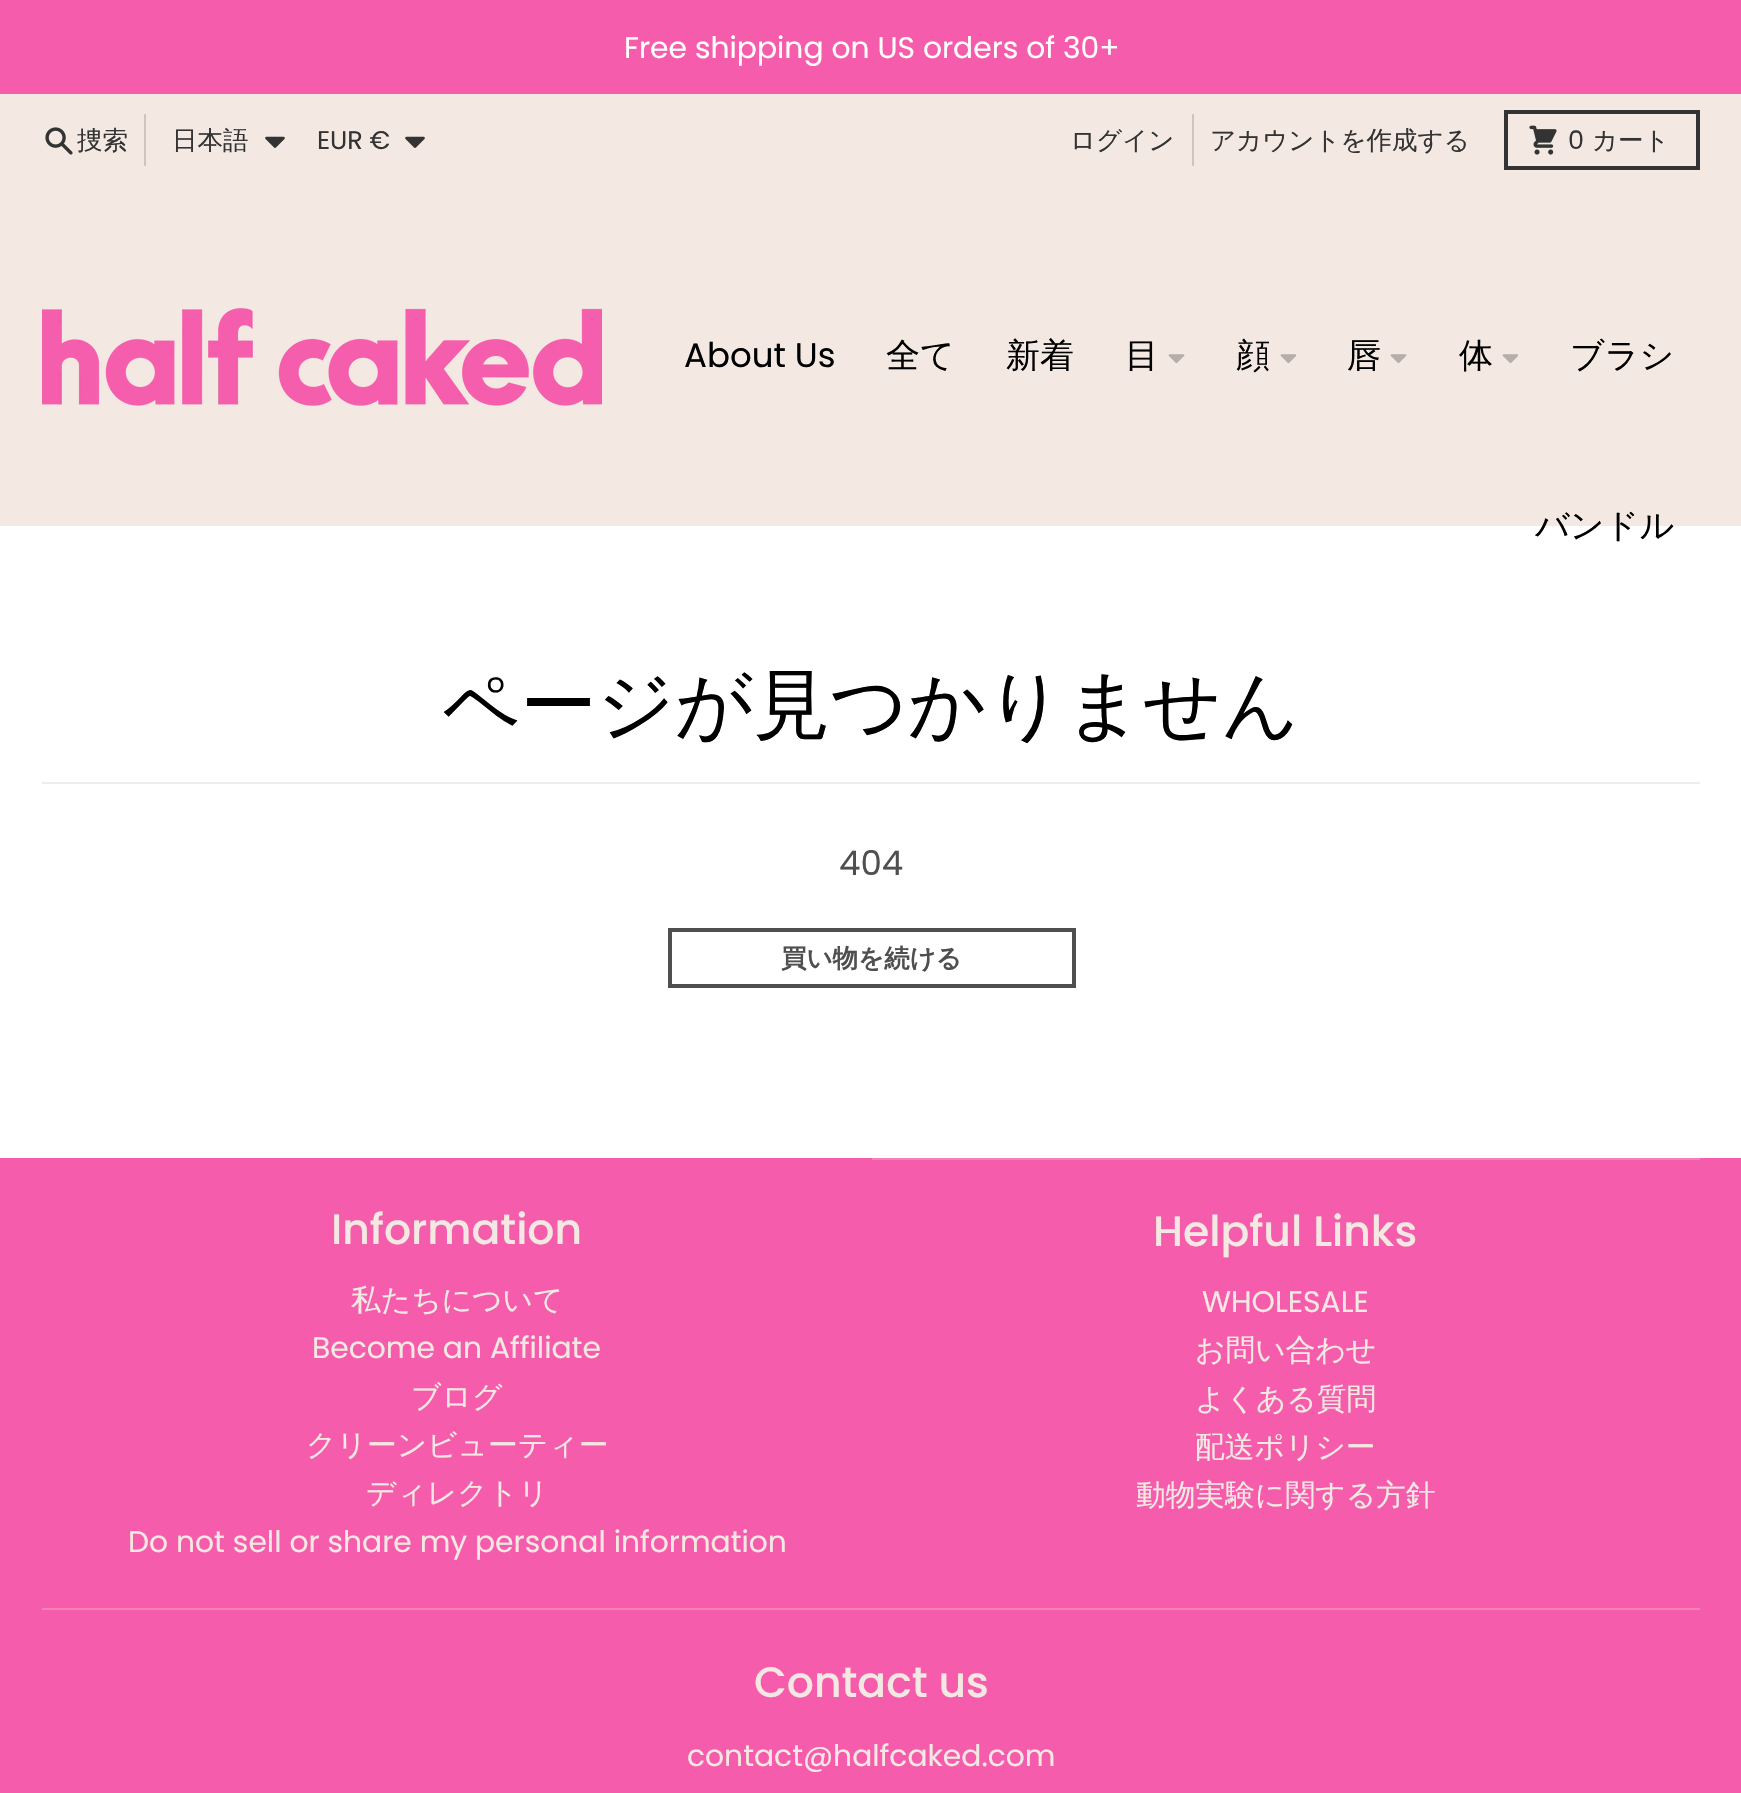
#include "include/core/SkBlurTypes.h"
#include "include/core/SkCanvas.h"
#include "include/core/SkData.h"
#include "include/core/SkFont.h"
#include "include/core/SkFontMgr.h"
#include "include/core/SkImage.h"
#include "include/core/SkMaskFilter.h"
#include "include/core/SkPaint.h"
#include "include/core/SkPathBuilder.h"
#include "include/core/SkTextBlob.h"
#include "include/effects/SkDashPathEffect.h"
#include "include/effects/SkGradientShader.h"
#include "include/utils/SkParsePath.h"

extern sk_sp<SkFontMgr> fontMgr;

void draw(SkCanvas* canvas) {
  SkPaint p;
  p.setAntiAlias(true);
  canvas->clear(SkColorSetRGB(245, 93, 172));
  p.setColor(SkColorSetRGB(243, 233, 226));
  canvas->drawRect(SkRect::MakeLTRB(0, 94, 1741, 526), p);
  canvas->drawImageRect(SkImages::DeferredFromEncodedData(SkData::MakeFromFileName("images/1.png")), SkRect::MakeLTRB(45, 127, 73, 155), SkSamplingOptions());
  p.setColor(SkColorSetRGB(205, 197, 191));
  canvas->drawRect(SkRect::MakeLTRB(144, 114, 146, 166), p);
  canvas->drawImageRect(SkImages::DeferredFromEncodedData(SkData::MakeFromFileName("images/2.png")), SkRect::MakeLTRB(265, 136, 285, 148), SkSamplingOptions());
  canvas->drawImageRect(SkImages::DeferredFromEncodedData(SkData::MakeFromFileName("images/2.png")), SkRect::MakeLTRB(405, 136, 425, 148), SkSamplingOptions());
  canvas->drawRect(SkRect::MakeLTRB(1192, 114, 1194, 166), p);
  p.setStyle(SkPaint::kStroke_Style);
  p.setStrokeWidth(4);
  p.setColor(SkColorSetRGB(51, 51, 51));
  canvas->drawRect(SkRect::MakeLTRB(1506, 112, 1698, 168), p);
  canvas->drawImageRect(SkImages::DeferredFromEncodedData(SkData::MakeFromFileName("images/3.png")), SkRect::MakeLTRB(1529, 125, 1557, 155), SkSamplingOptions());
  canvas->drawImageRect(SkImages::DeferredFromEncodedData(SkData::MakeFromFileName("images/4.png")), SkRect::MakeLTRB(42, 308, 602, 406), SkSamplingOptions());
  canvas->drawImageRect(SkImages::DeferredFromEncodedData(SkData::MakeFromFileName("images/5.png")), SkRect::MakeLTRB(1168, 354, 1185, 364), SkSamplingOptions());
  canvas->drawImageRect(SkImages::DeferredFromEncodedData(SkData::MakeFromFileName("images/6.png")), SkRect::MakeLTRB(1280, 354, 1296, 364), SkSamplingOptions());
  canvas->drawImageRect(SkImages::DeferredFromEncodedData(SkData::MakeFromFileName("images/5.png")), SkRect::MakeLTRB(1390, 354, 1407, 364), SkSamplingOptions());
  canvas->drawImageRect(SkImages::DeferredFromEncodedData(SkData::MakeFromFileName("images/6.png")), SkRect::MakeLTRB(1502, 354, 1518, 364), SkSamplingOptions());
  p.setStyle(SkPaint::kFill_Style);
  p.setColor(SK_ColorWHITE);
  canvas->drawRect(SkRect::MakeLTRB(0, 526, 1741, 1158), p);
  p.setColor(SkColorSetRGB(237, 237, 237));
  canvas->drawRect(SkRect::MakeLTRB(42, 782, 1700, 784), p);
  p.setStyle(SkPaint::kStroke_Style);
  p.setColor(SkColorSetRGB(79, 79, 79));
  canvas->drawRect(SkRect::MakeLTRB(670, 930, 1074, 986), p);
  p.setStyle(SkPaint::kFill_Style);
  p.setColor(SkColorSetRGB(245, 128, 186));
  canvas->drawRect(SkRect::MakeLTRB(872, 1158, 1700, 1160), p);
  canvas->drawRect(SkRect::MakeLTRB(42, 1608, 1700, 1610), p);
  SkFont font1(fontMgr->matchFamilyStyle("Poppins", SkFontStyle::Normal()), 29.75f);
  font1.setSubpixel(true);
  p.setColor(SK_ColorWHITE);
  canvas->drawString("Free shipping on US orders of 30+", 624, 58, font1, p);
  SkFont font2(fontMgr->matchFamilyStyle("WenQuanYi Zen Hei", SkFontStyle(500, SkFontStyle::kNormal_Width, SkFontStyle::kUpright_Slant)), 25.5f);
  font2.setSubpixel(true);
  p.setColor(SkColorSetRGB(51, 51, 51));
  canvas->drawString("捜索", 77, 149, font2, p);
  canvas->drawString("日本語", 172, 149, font2, p);
  SkFont font3(fontMgr->matchFamilyStyle("Poppins", SkFontStyle::Normal()), 25.5f);
  font3.setSubpixel(true);
  canvas->drawString("EUR €", 317, 149, font3, p);
  canvas->drawString("ログイン", 1070, 149, font2, p);
  canvas->drawString("アカウントを作成する", 1210, 149, font2, p);
  canvas->drawString("0", 1568, 149, font3, p);
  canvas->drawString("カート", 1592, 149, font2, p);
  SkFont font4(fontMgr->matchFamilyStyle("Poppins", SkFontStyle::Normal()), 34);
  font4.setSubpixel(true);
  p.setColor(SK_ColorBLACK);
  canvas->drawString("About Us", 684, 367, font4, p);
  SkFont font5(fontMgr->matchFamilyStyle("WenQuanYi Zen Hei", SkFontStyle(500, SkFontStyle::kNormal_Width, SkFontStyle::kUpright_Slant)), 34);
  font5.setSubpixel(true);
  canvas->drawString("全て", 886, 367, font5, p);
  canvas->drawString("新着", 1006, 367, font5, p);
  canvas->drawString("目", 1125, 367, font5, p);
  canvas->drawString("顔", 1236, 367, font5, p);
  canvas->drawString("唇", 1347, 367, font5, p);
  canvas->drawString("体", 1459, 367, font5, p);
  canvas->drawString("ブラシ", 1570, 367, font5, p);
  canvas->drawString("バンドル", 1535, 537, font5, p);
  SkFont font6(fontMgr->matchFamilyStyle("WenQuanYi Zen Hei", SkFontStyle(500, SkFontStyle::kNormal_Width, SkFontStyle::kUpright_Slant)), 76.5f);
  font6.setSubpixel(true);
  canvas->drawString("ページが見つかりません", 442, 731, font6, p);
  p.setColor(SkColorSetRGB(79, 79, 79));
  canvas->drawString("404", 839, 875, font4, p);
  SkFont font7(fontMgr->matchFamilyStyle("WenQuanYi Zen Hei", SkFontStyle::Bold()), 25.5f);
  font7.setSubpixel(true);
  canvas->drawString("買い物を続ける", 781, 967, font7, p);
  SkFont font8(fontMgr->matchFamilyStyle("Poppins", SkFontStyle(500, SkFontStyle::kNormal_Width, SkFontStyle::kUpright_Slant)), 42.5f);
  font8.setSubpixel(true);
  p.setColor(SkColorSetRGB(243, 233, 226));
  canvas->drawString("Information", 331, 1244, font8, p);
  SkFont font9(fontMgr->matchFamilyStyle("WenQuanYi Zen Hei", SkFontStyle(500, SkFontStyle::kNormal_Width, SkFontStyle::kUpright_Slant)), 29.75f);
  font9.setSubpixel(true);
  canvas->drawString("私たちについて", 351, 1310, font9, p);
  canvas->drawString("Become an Affiliate", 312, 1358, font1, p);
  canvas->drawString("ブログ", 411, 1407, font9, p);
  canvas->drawString("クリーンビューティー", 306, 1455, font9, p);
  canvas->drawString("ディレクトリ", 366, 1503, font9, p);
  canvas->drawString("Do not sell or share my personal information", 128, 1552, font1, p);
  canvas->drawString("Helpful Links", 1153, 1246, font8, p);
  canvas->drawString("WHOLESALE", 1202, 1312, font1, p);
  canvas->drawString("お問い合わせ", 1195, 1360, font9, p);
  canvas->drawString("よくある質問", 1195, 1409, font9, p);
  canvas->drawString("配送ポリシー", 1195, 1457, font9, p);
  canvas->drawString("動物実験に関する方針", 1136, 1505, font9, p);
  canvas->drawString("Contact us", 754, 1697, font8, p);
  canvas->drawString("contact@halfcaked.com", 687, 1766, font1, p);
}
